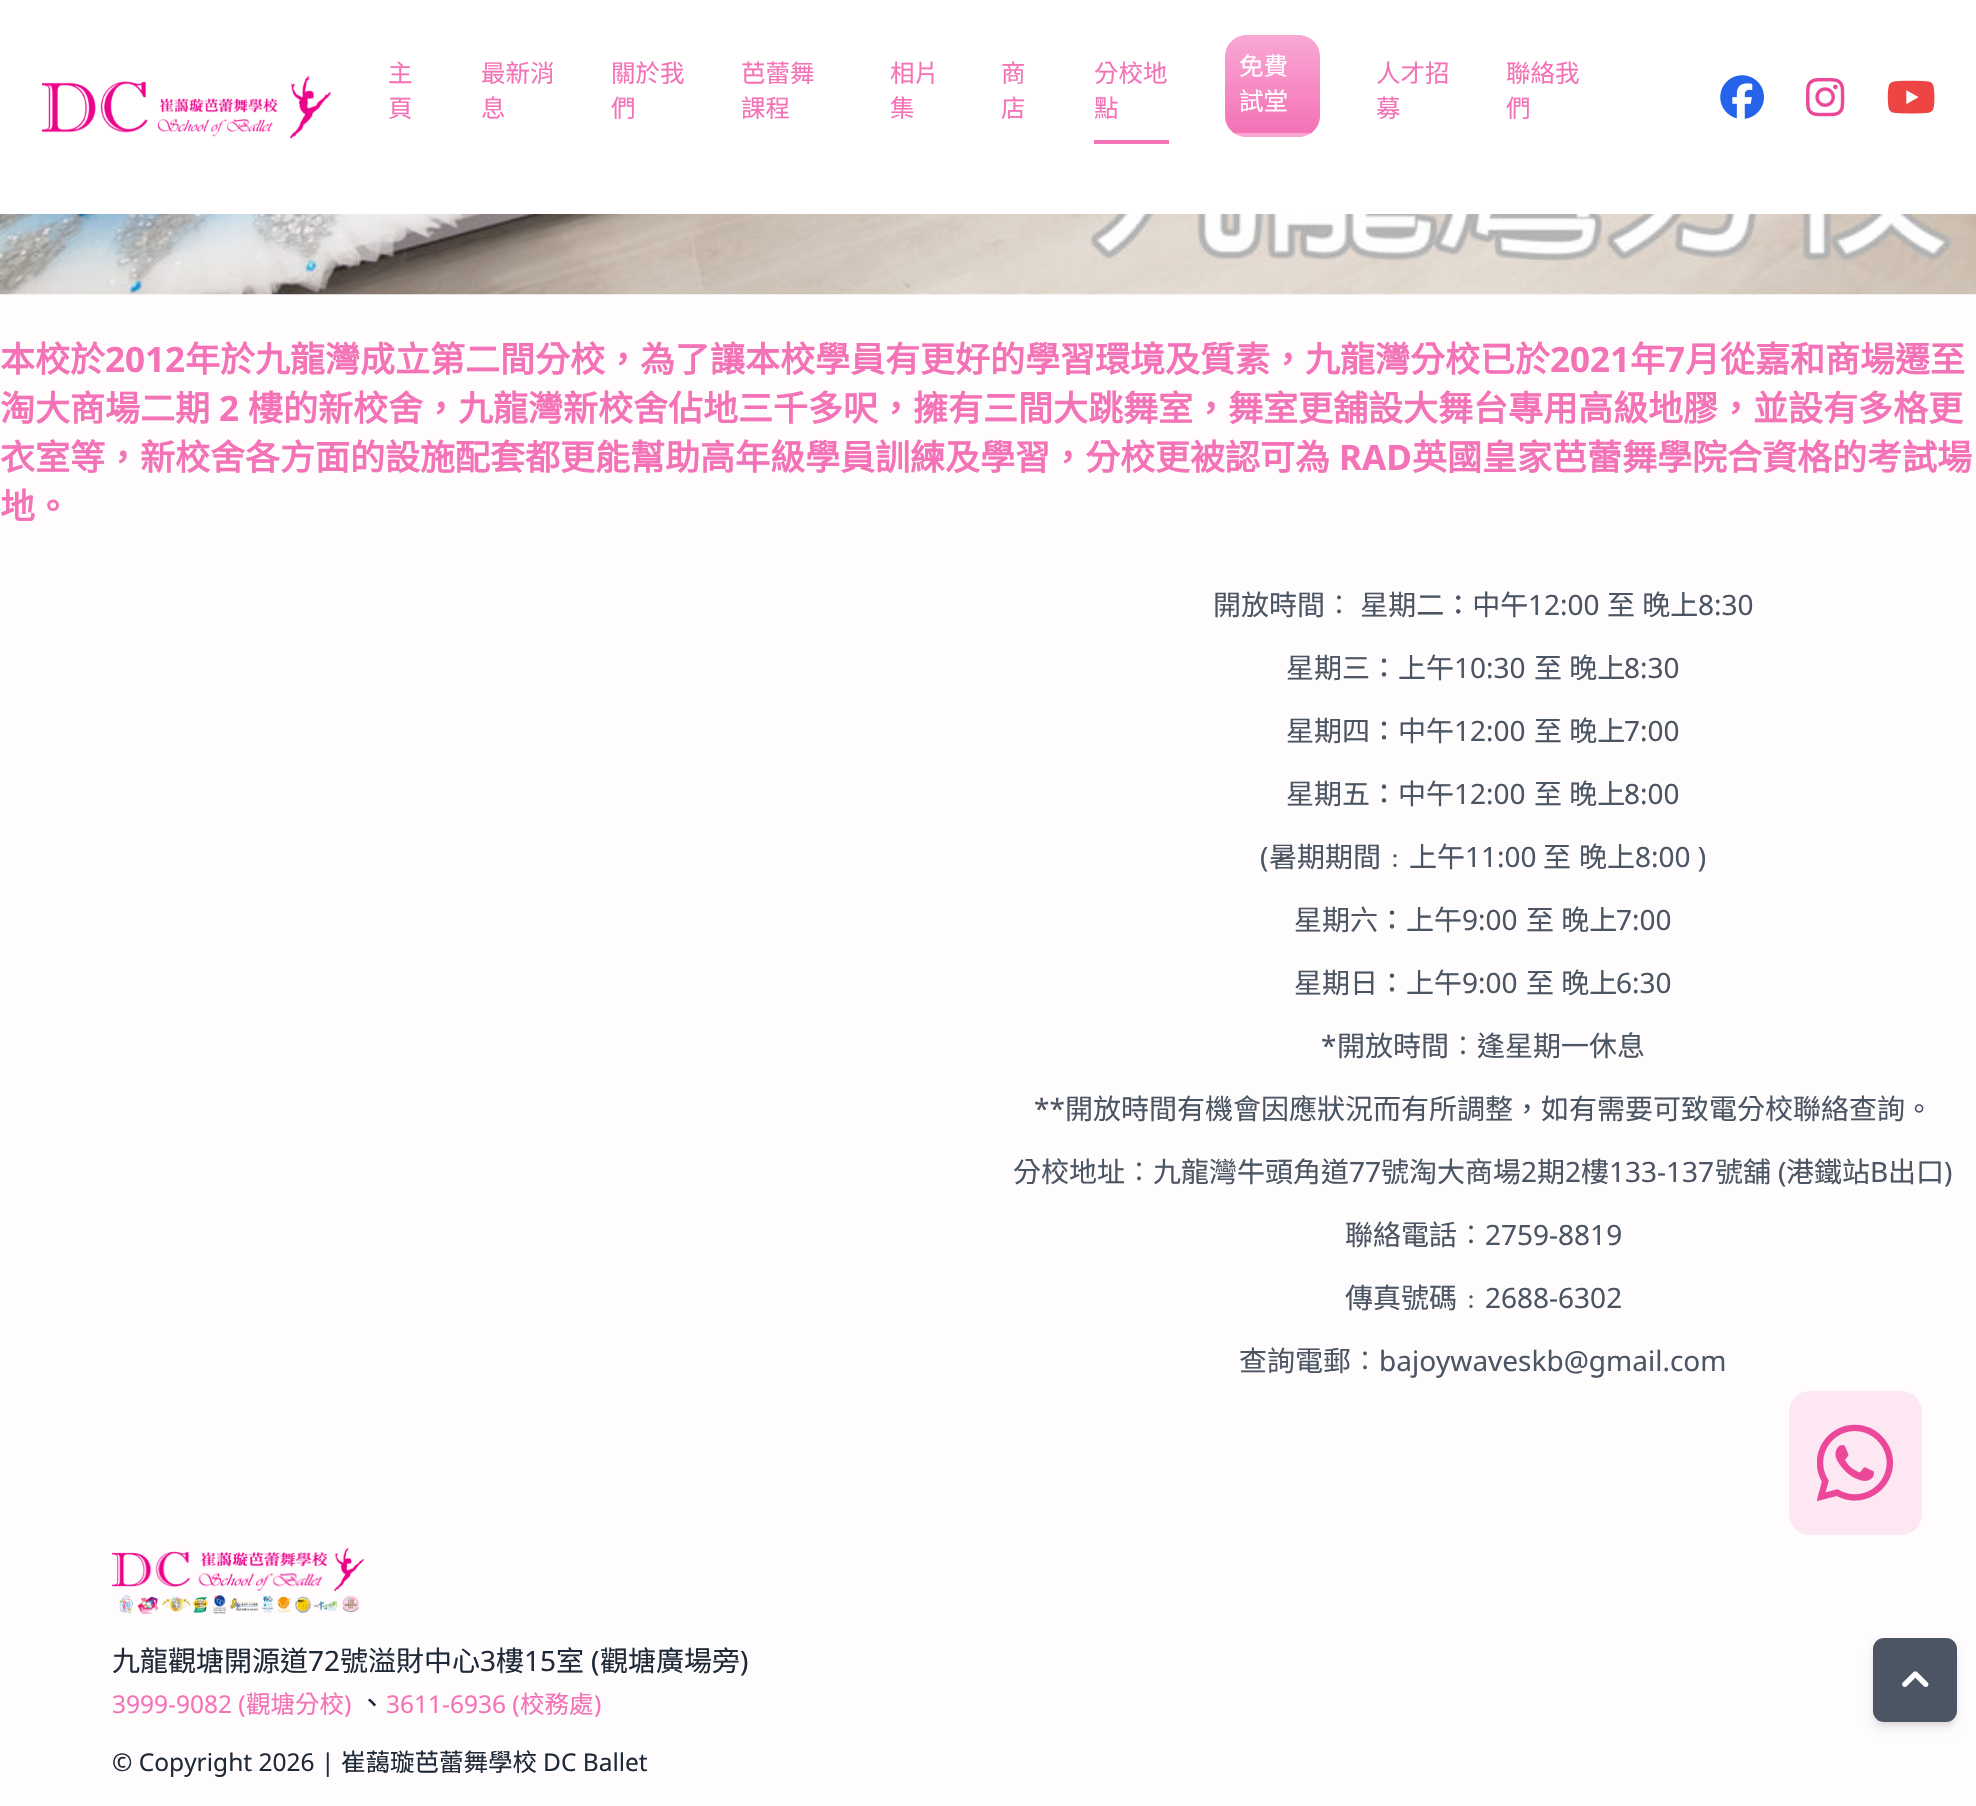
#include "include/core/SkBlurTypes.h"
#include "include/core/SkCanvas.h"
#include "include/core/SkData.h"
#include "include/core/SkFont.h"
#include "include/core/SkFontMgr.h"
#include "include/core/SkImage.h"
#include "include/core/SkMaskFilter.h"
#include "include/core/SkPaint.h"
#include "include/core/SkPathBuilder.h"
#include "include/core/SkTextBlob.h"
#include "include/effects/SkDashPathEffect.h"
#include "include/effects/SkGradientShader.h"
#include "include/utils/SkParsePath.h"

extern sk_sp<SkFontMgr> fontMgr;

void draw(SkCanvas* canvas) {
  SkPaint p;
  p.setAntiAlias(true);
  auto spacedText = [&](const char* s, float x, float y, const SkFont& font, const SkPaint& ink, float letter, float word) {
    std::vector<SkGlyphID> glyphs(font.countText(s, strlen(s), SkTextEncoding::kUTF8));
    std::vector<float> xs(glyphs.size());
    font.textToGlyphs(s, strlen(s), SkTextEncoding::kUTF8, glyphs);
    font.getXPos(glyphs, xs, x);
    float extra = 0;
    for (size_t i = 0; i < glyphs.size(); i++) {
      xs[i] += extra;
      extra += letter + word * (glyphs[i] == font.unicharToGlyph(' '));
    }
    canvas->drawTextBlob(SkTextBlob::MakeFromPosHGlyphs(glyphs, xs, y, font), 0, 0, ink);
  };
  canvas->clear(SkColorSetRGB(255, 252, 254));
  p.setColor(SK_ColorWHITE);
  canvas->drawRect(SkRect::MakeLTRB(0, 0, 1976, 214), p);
  canvas->drawImageRect(SkImages::DeferredFromEncodedData(SkData::MakeFromFileName("images/1.png")), SkRect::MakeLTRB(42, 75, 331, 139), SkSamplingOptions());
  p.setColor(SkColorSetRGB(244, 114, 182));
  canvas->drawRect(SkRect::MakeLTRB(1094, 140, 1169, 144), p);
  canvas->save();
  canvas->clipPath(SkPathBuilder().moveTo(1246, 35).lineTo(1299, 35).cubicTo(1310.5f, 35, 1320, 44.5f, 1320, 56).lineTo(1320, 116).cubicTo(1320, 127.5f, 1310.5f, 137, 1299, 137).lineTo(1246, 137).cubicTo(1234.5f, 137, 1225, 127.5f, 1225, 116).lineTo(1225, 56).cubicTo(1225, 44.5f, 1234.5f, 35, 1246, 35).close().detach(), true);
  {
    const SkColor colors[] = {SkColorSetRGB(249, 168, 212), SkColorSetRGB(244, 114, 182)};
    const float stops[] = {0, 1};
    const SkPoint ends[] = {{1272, 35}, {1272, 133}};
    p.setShader(SkGradientShader::MakeLinear(ends, colors, stops, 2, SkTileMode::kClamp));
    p.setAlpha(255);
  }
  canvas->drawPath(SkPathBuilder().moveTo(1246, 35).lineTo(1299, 35).cubicTo(1310.5f, 35, 1320, 44.5f, 1320, 56).lineTo(1320, 133).lineTo(1225, 133).lineTo(1225, 56).cubicTo(1225, 44.5f, 1234.5f, 35, 1246, 35).close().detach(), p);
  {
    const SkColor colors[] = {SkColorSetRGB(249, 168, 212), SkColorSetRGB(244, 114, 182)};
    const float stops[] = {0, 1};
    const SkPoint ends[] = {{1272, 133}, {1272, 231}};
    p.setShader(SkGradientShader::MakeLinear(ends, colors, stops, 2, SkTileMode::kClamp));
    p.setAlpha(255);
  }
  canvas->drawRect(SkRect::MakeLTRB(1225, 133, 1320, 137), p);
  canvas->restore();
  canvas->drawImageRect(SkImages::DeferredFromEncodedData(SkData::MakeFromFileName("images/2.png")), SkRect::MakeLTRB(1720, 75, 1764, 119), SkSamplingOptions());
  canvas->drawImageRect(SkImages::DeferredFromEncodedData(SkData::MakeFromFileName("images/3.png")), SkRect::MakeLTRB(1806, 78, 1845, 117), SkSamplingOptions());
  canvas->drawImageRect(SkImages::DeferredFromEncodedData(SkData::MakeFromFileName("images/4.png")), SkRect::MakeLTRB(1887, 80, 1935, 114), SkSamplingOptions());
  canvas->drawImageRect(SkImages::DeferredFromEncodedData(SkData::MakeFromFileName("images/5.png")), SkRect::MakeLTRB(0, 214, 1976, 295), SkSamplingOptions());
  p.setShader(nullptr);
  p.setColor(SkColorSetRGB(252, 231, 243));
  canvas->drawRoundRect(SkRect::MakeLTRB(1789, 1391, 1922, 1535), 21, 21, p);
  canvas->drawImageRect(SkImages::DeferredFromEncodedData(SkData::MakeFromFileName("images/6.png")), SkRect::MakeLTRB(1817, 1424, 1894, 1502), SkSamplingOptions());
  canvas->drawImageRect(SkImages::DeferredFromEncodedData(SkData::MakeFromFileName("images/7.png")), SkRect::MakeLTRB(112, 1547, 364, 1591), SkSamplingOptions());
  canvas->drawImageRect(SkImages::DeferredFromEncodedData(SkData::MakeFromFileName("images/8.png")), SkRect::MakeLTRB(119, 1595, 359, 1614), SkSamplingOptions());
  p.setColor(SkColorSetARGB(26, 0, 0, 0));
  p.setMaskFilter(SkMaskFilter::MakeBlur(kNormal_SkBlurStyle, 3.5f));
  canvas->drawRoundRect(SkRect::MakeLTRB(1876, 1645, 1953, 1722), 7, 7, p);
  p.setMaskFilter(nullptr);
  p.setMaskFilter(SkMaskFilter::MakeBlur(kNormal_SkBlurStyle, 5));
  canvas->drawRoundRect(SkRect::MakeLTRB(1874, 1647, 1955, 1727), 9, 9, p);
  p.setMaskFilter(nullptr);
  p.setColor(SkColorSetRGB(75, 85, 99));
  canvas->drawRoundRect(SkRect::MakeLTRB(1873, 1638, 1957, 1722), 11, 11, p);
  canvas->drawImageRect(SkImages::DeferredFromEncodedData(SkData::MakeFromFileName("images/9.png")), SkRect::MakeLTRB(1902, 1671, 1929, 1687), SkSamplingOptions());
  SkFont font1(fontMgr->matchFamilyStyle("Noto Sans CJK TC", SkFontStyle::Normal()), 24.5f);
  font1.setSubpixel(true);
  p.setColor(SkColorSetRGB(244, 114, 182));
  canvas->drawString("主", 388, 82, font1, p);
  canvas->drawString("頁", 388, 117, font1, p);
  canvas->drawString("最新消", 481, 82, font1, p);
  canvas->drawString("息", 481, 117, font1, p);
  canvas->drawString("關於我", 611, 82, font1, p);
  canvas->drawString("們", 611, 117, font1, p);
  canvas->drawString("芭蕾舞", 741, 82, font1, p);
  canvas->drawString("課程", 741, 117, font1, p);
  canvas->drawString("相片", 890, 82, font1, p);
  canvas->drawString("集", 890, 117, font1, p);
  canvas->drawString("商", 1001, 82, font1, p);
  canvas->drawString("店", 1001, 117, font1, p);
  canvas->drawString("分校地", 1094, 82, font1, p);
  canvas->drawString("點", 1094, 117, font1, p);
  p.setColor(SK_ColorWHITE);
  canvas->drawString("免費", 1239, 75, font1, p);
  canvas->drawString("試堂", 1239, 110, font1, p);
  p.setColor(SkColorSetRGB(244, 114, 182));
  canvas->drawString("人才招", 1376, 82, font1, p);
  canvas->drawString("募", 1376, 117, font1, p);
  canvas->drawString("聯絡我", 1506, 82, font1, p);
  canvas->drawString("們", 1506, 117, font1, p);
  SkFont font2(fontMgr->matchFamilyStyle("Noto Sans CJK TC", SkFontStyle::Bold()), 35);
  font2.setSubpixel(true);
  canvas->drawString("本校於", 0, 372, font2, p);
  SkFont font3(fontMgr->matchFamilyStyle("Noto Sans", SkFontStyle::Bold()), 35);
  font3.setSubpixel(true);
  canvas->drawString("2012", 105, 372, font3, p);
  canvas->drawString("年於九龍灣成立第二間分校，為了讓本校學員有更好的學習環境及質素，九龍灣分校已於", 185, 372, font2, p);
  canvas->drawString("2021", 1550, 372, font3, p);
  canvas->drawString("年", 1630, 372, font2, p);
  canvas->drawString("7", 1665, 372, font3, p);
  canvas->drawString("月從嘉和商場遷至", 1685, 372, font2, p);
  canvas->drawString("淘大商場二期", 0, 421, font2, p);
  canvas->drawString("2", 219, 421, font3, p);
  canvas->drawString("樓的新校舍，九龍灣新校舍佔地三千多呎，擁有三間大跳舞室，舞室更舖設大舞台專用高級地膠，並設有多格更", 248, 421, font2, p);
  canvas->drawString("衣室等，新校舍各方面的設施配套都更能幫助高年級學員訓練及學習，分校更被認可為", 0, 470, font2, p);
  canvas->drawString("RAD", 1339, 470, font3, p);
  canvas->drawString("英國皇家芭蕾舞學院合資格的考試場", 1412, 470, font2, p);
  canvas->drawString("地。", 0, 519, font2, p);
  SkFont font4(fontMgr->matchFamilyStyle("Noto Sans CJK TC", SkFontStyle::Normal()), 28);
  font4.setSubpixel(true);
  p.setColor(SkColorSetRGB(75, 85, 99));
  spacedText("開放時間︰ 星期二：中午", 1213, 615, font4, p, 0, 1);
  SkFont font5(fontMgr->matchFamilyStyle("Noto Sans", SkFontStyle::Normal()), 28);
  font5.setSubpixel(true);
  canvas->drawString("12:00", 1528, 615, font5, p);
  spacedText("至 晚上", 1607, 615, font4, p, 0, 1);
  canvas->drawString("8:30", 1698, 615, font5, p);
  canvas->drawString("星期三：上午", 1286, 678, font4, p);
  canvas->drawString("10:30", 1454, 678, font5, p);
  spacedText("至 晚上", 1534, 678, font4, p, 0, 1);
  canvas->drawString("8:30", 1624, 678, font5, p);
  canvas->drawString("星期四：中午", 1286, 741, font4, p);
  canvas->drawString("12:00", 1454, 741, font5, p);
  spacedText("至 晚上", 1534, 741, font4, p, 0, 1);
  canvas->drawString("7:00", 1624, 741, font5, p);
  canvas->drawString("星期五：中午", 1286, 804, font4, p);
  canvas->drawString("12:00", 1454, 804, font5, p);
  spacedText("至 晚上", 1534, 804, font4, p, 0, 1);
  canvas->drawString("8:00", 1624, 804, font5, p);
  canvas->drawString("(", 1260, 867, font5, p);
  canvas->drawString("暑期期間﹕上午", 1269, 867, font4, p);
  canvas->drawString("11:00", 1465, 867, font5, p);
  canvas->drawString("至", 1543, 867, font4, p);
  canvas->drawString("晚上", 1579, 867, font4, p);
  canvas->drawString("8:00 )", 1635, 867, font5, p);
  canvas->drawString("星期六：上午", 1294, 930, font4, p);
  canvas->drawString("9:00", 1462, 930, font5, p);
  spacedText("至 晚上", 1526, 930, font4, p, 0, 1);
  canvas->drawString("7:00", 1616, 930, font5, p);
  canvas->drawString("星期日：上午", 1294, 993, font4, p);
  canvas->drawString("9:00", 1462, 993, font5, p);
  spacedText("至 晚上", 1526, 993, font4, p, 0, 1);
  canvas->drawString("6:30", 1616, 993, font5, p);
  canvas->drawString("*", 1321, 1056, font5, p);
  canvas->drawString("開放時間︰逢星期一休息", 1337, 1056, font4, p);
  canvas->drawString("**", 1034, 1119, font5, p);
  canvas->drawString("開放時間有機會因應狀況而有所調整，如有需要可致電分校聯絡查詢。", 1065, 1119, font4, p);
  canvas->drawString("分校地址︰九龍灣牛頭角道", 1013, 1182, font4, p);
  canvas->drawString("77", 1349, 1182, font5, p);
  canvas->drawString("號淘大商場", 1381, 1182, font4, p);
  canvas->drawString("2", 1521, 1182, font5, p);
  canvas->drawString("期", 1537, 1182, font4, p);
  canvas->drawString("2", 1565, 1182, font5, p);
  canvas->drawString("樓", 1581, 1182, font4, p);
  canvas->drawString("133-137", 1609, 1182, font5, p);
  canvas->drawString("號舖", 1715, 1182, font4, p);
  canvas->drawString("(", 1778, 1182, font5, p);
  canvas->drawString("港鐵站", 1786, 1182, font4, p);
  canvas->drawString("B", 1870, 1182, font5, p);
  canvas->drawString("出口", 1888, 1182, font4, p);
  canvas->drawString(")", 1944, 1182, font5, p);
  canvas->drawString("聯絡電話︰", 1345, 1245, font4, p);
  canvas->drawString("2759-8819", 1485, 1245, font5, p);
  canvas->drawString("傳真號碼﹕", 1345, 1308, font4, p);
  canvas->drawString("2688-6302", 1485, 1308, font5, p);
  canvas->drawString("查詢電郵︰", 1239, 1371, font4, p);
  canvas->drawString("bajoywaveskb@gmail.com", 1379, 1371, font5, p);
  p.setColor(SkColorSetRGB(31, 41, 55));
  canvas->drawString("九龍觀塘開源道", 112, 1671, font4, p);
  canvas->drawString("72", 308, 1671, font5, p);
  canvas->drawString("號溢財中心", 340, 1671, font4, p);
  canvas->drawString("3", 480, 1671, font5, p);
  canvas->drawString("樓", 496, 1671, font4, p);
  canvas->drawString("15", 524, 1671, font5, p);
  canvas->drawString("室", 556, 1671, font4, p);
  canvas->drawString("(", 591, 1671, font5, p);
  canvas->drawString("觀塘廣場旁", 600, 1671, font4, p);
  canvas->drawString(")", 740, 1671, font5, p);
  SkFont font6(fontMgr->matchFamilyStyle("Noto Sans", SkFontStyle::Normal()), 24.5f);
  font6.setSubpixel(true);
  p.setColor(SkColorSetRGB(244, 114, 182));
  canvas->drawString("3999-9082 (", 112, 1713, font6, p);
  canvas->drawString("觀塘分校", 246, 1713, font1, p);
  canvas->drawString(")", 344, 1713, font6, p);
  p.setColor(SkColorSetRGB(31, 41, 55));
  canvas->drawString("、", 358, 1713, font4, p);
  p.setColor(SkColorSetRGB(244, 114, 182));
  canvas->drawString("3611-6936 (", 386, 1713, font6, p);
  canvas->drawString("校務處", 520, 1713, font1, p);
  canvas->drawString(")", 594, 1713, font6, p);
  p.setColor(SkColorSetRGB(31, 41, 55));
  canvas->drawString("© Copyright 2026 |", 112, 1771, font6, p);
  canvas->drawString("崔藹璇芭蕾舞學校", 341, 1771, font1, p);
  canvas->drawString("DC Ballet", 543, 1771, font6, p);
}
